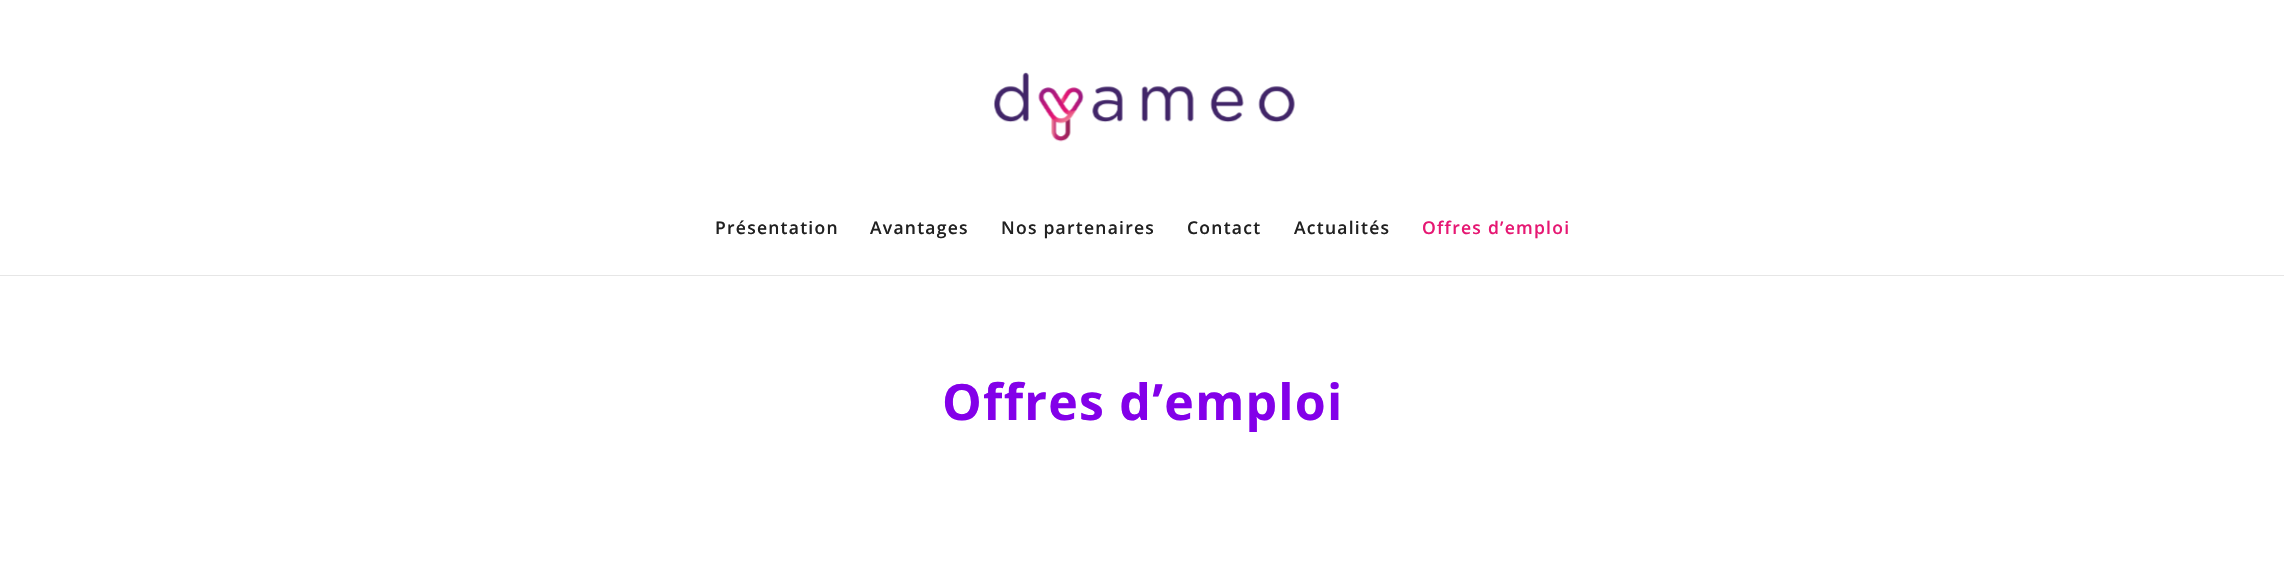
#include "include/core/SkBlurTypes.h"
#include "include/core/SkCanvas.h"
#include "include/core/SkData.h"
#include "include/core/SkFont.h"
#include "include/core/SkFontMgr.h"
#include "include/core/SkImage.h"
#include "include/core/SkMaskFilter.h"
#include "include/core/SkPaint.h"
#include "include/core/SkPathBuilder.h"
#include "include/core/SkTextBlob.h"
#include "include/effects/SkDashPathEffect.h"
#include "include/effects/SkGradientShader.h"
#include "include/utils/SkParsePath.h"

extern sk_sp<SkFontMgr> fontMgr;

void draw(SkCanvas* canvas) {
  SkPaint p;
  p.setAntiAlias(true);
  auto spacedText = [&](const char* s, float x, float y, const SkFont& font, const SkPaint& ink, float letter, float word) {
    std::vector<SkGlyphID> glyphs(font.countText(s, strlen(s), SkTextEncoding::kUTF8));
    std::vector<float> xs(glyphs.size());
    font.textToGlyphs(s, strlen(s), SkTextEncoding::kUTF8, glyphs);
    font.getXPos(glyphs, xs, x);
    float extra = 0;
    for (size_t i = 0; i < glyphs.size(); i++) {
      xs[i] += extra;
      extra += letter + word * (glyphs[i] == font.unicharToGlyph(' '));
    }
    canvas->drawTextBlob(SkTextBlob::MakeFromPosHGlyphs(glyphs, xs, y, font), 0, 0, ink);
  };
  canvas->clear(SK_ColorWHITE);
  p.setColor(SkColorSetRGB(230, 230, 230));
  canvas->drawRect(SkRect::MakeLTRB(0, 275, 2284, 276), p);
  canvas->drawImageRect(SkImages::DeferredFromEncodedData(SkData::MakeFromFileName("images/1.png")), SkRect::MakeLTRB(993, 72, 1295, 142), SkSamplingOptions());
  SkFont font1(fontMgr->matchFamilyStyle("Open Sans", SkFontStyle(600, SkFontStyle::kNormal_Width, SkFontStyle::kUpright_Slant)), 17.5f);
  font1.setSubpixel(true);
  p.setColor(SkColorSetRGB(33, 33, 33));
  spacedText("Présentation", 715, 234, font1, p, 1.25f, 0);
  spacedText("Avantages", 870, 234, font1, p, 1.25f, 0);
  spacedText("Nos partenaires", 1001, 234, font1, p, 1.25f, 0);
  spacedText("Contact", 1187, 234, font1, p, 1.25f, 0);
  spacedText("Actualités", 1294, 234, font1, p, 1.25f, 0);
  p.setColor(SkColorSetRGB(230, 24, 115));
  spacedText("Offres d’emploi", 1422, 234, font1, p, 1.25f, 0);
  SkFont font2(fontMgr->matchFamilyStyle("Open Sans", SkFontStyle::Bold()), 50);
  font2.setSubpixel(true);
  p.setColor(SkColorSetRGB(131, 0, 233));
  spacedText("Offres d’emploi", 942, 420, font2, p, 1.25f, 0);
}
